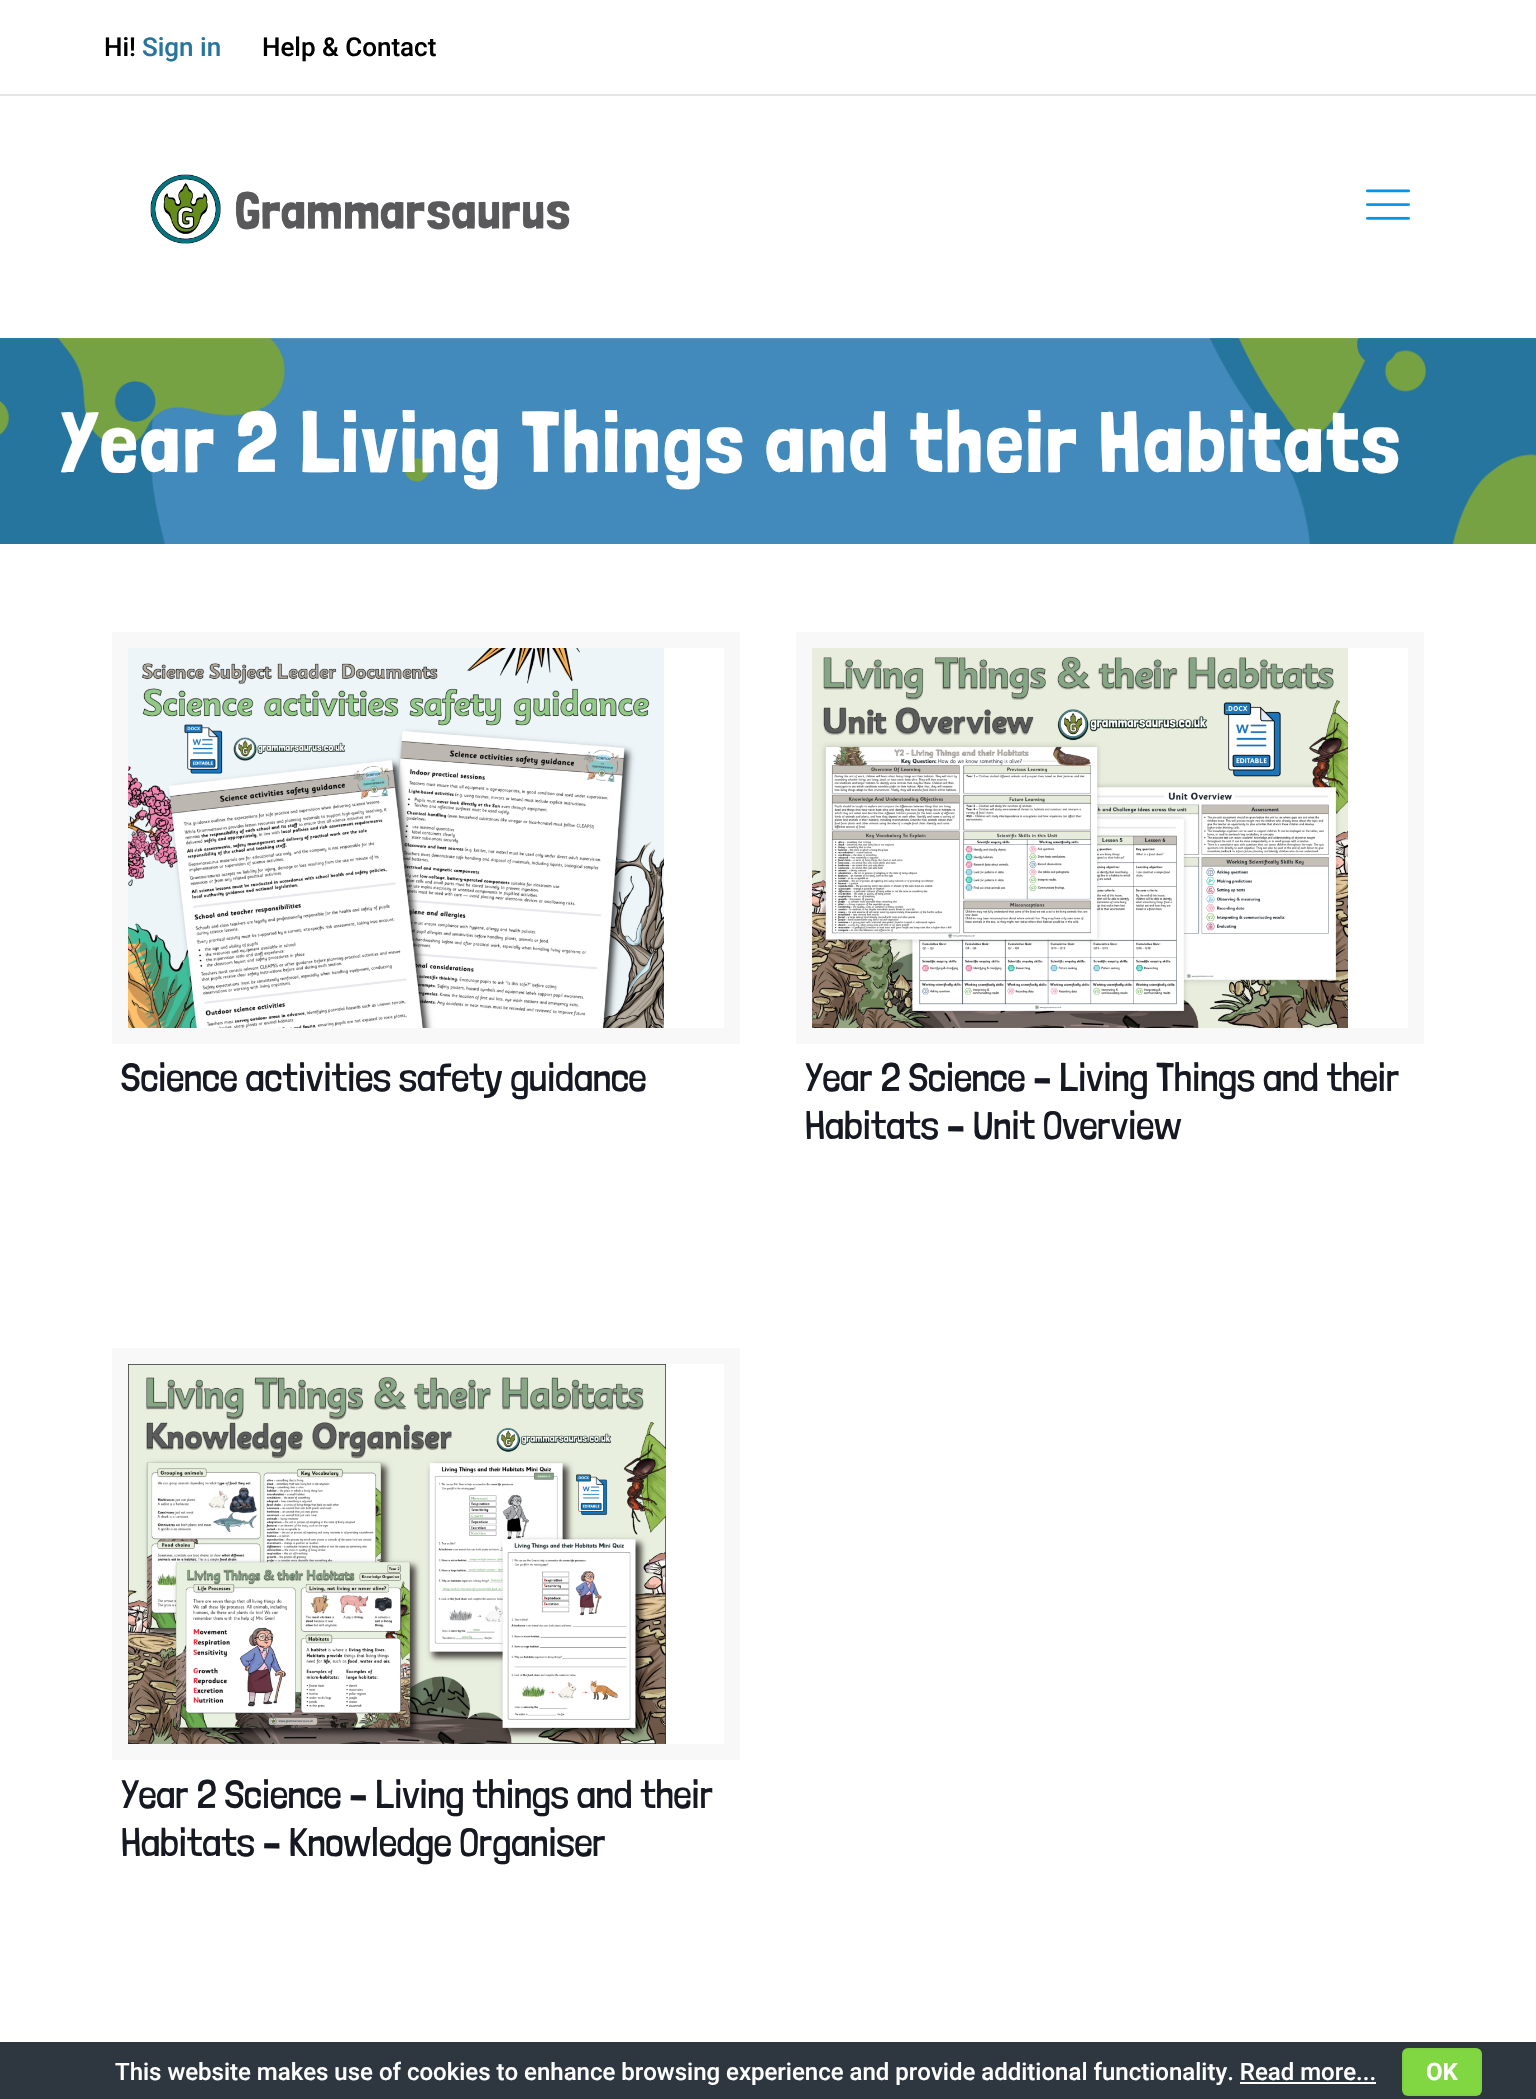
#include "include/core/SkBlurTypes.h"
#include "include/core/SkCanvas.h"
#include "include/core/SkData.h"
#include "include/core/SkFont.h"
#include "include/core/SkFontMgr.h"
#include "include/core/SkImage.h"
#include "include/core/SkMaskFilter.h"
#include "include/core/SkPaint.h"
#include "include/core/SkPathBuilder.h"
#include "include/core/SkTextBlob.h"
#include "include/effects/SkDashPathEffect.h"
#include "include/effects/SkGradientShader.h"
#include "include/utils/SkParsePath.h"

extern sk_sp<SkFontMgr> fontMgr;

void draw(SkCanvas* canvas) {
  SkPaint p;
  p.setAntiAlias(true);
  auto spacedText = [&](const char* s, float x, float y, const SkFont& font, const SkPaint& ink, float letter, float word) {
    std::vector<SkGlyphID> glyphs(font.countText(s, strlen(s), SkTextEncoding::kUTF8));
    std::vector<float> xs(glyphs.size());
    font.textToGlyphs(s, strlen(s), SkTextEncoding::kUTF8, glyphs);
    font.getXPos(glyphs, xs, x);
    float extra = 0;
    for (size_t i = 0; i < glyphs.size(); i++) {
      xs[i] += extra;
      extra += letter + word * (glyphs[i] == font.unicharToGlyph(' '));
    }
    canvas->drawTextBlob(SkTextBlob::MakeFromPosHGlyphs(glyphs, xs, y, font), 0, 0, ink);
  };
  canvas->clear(SK_ColorWHITE);
  p.setColor(SkColorSetRGB(229, 229, 229));
  canvas->drawRect(SkRect::MakeLTRB(0, 94, 1536, 96), p);
  canvas->drawImageRect(SkImages::DeferredFromEncodedData(SkData::MakeFromFileName("images/1.png")), SkRect::MakeLTRB(150, 174, 570, 244), SkSamplingOptions());
  canvas->drawImageRect(SkImages::DeferredFromEncodedData(SkData::MakeFromFileName("images/2.png")), SkRect::MakeLTRB(1366, 189, 1410, 220), SkSamplingOptions());
  canvas->drawImageRect(SkImages::DeferredFromEncodedData(SkData::MakeFromFileName("images/3.png")), SkRect::MakeLTRB(0, 338, 1536, 544), SkSamplingOptions());
  p.setStyle(SkPaint::kStroke_Style);
  p.setStrokeWidth(16);
  p.setColor(SkColorSetRGB(248, 248, 248));
  canvas->drawRect(SkRect::MakeLTRB(120, 640, 732, 1036), p);
  canvas->drawImageRect(SkImages::DeferredFromEncodedData(SkData::MakeFromFileName("images/4.png")), SkRect::MakeLTRB(128, 648, 664, 1028), SkSamplingOptions());
  canvas->drawRect(SkRect::MakeLTRB(804, 640, 1416, 1036), p);
  canvas->drawImageRect(SkImages::DeferredFromEncodedData(SkData::MakeFromFileName("images/5.png")), SkRect::MakeLTRB(812, 648, 1348, 1028), SkSamplingOptions());
  canvas->drawRect(SkRect::MakeLTRB(120, 1356, 732, 1752), p);
  canvas->drawImageRect(SkImages::DeferredFromEncodedData(SkData::MakeFromFileName("images/6.png")), SkRect::MakeLTRB(128, 1364, 666, 1744), SkSamplingOptions());
  p.setStyle(SkPaint::kFill_Style);
  p.setColor(SkColorSetRGB(46, 54, 63));
  canvas->drawRect(SkRect::MakeLTRB(0, 2042, 1536, 2099), p);
  p.setColor(SkColorSetRGB(129, 215, 66));
  canvas->drawRoundRect(SkRect::MakeLTRB(1402, 2048, 1482, 2096), 6, 6, p);
  p.setStyle(SkPaint::kStroke_Style);
  p.setStrokeWidth(2);
  p.setColor(SkColorSetARGB(8, 0, 0, 0));
  canvas->drawRect(SkRect::MakeLTRB(1403, 2049, 1481, 2095), p);
  p.setStyle(SkPaint::kFill_Style);
  p.setColor(SK_ColorWHITE);
  canvas->drawRect(SkRect::MakeLTRB(1240, 2082, 1376, 2084), p);
  SkFont font1(fontMgr->matchFamilyStyle("Roboto", SkFontStyle(500, SkFontStyle::kNormal_Width, SkFontStyle::kUpright_Slant)), 26);
  font1.setSubpixel(true);
  p.setColor(SK_ColorBLACK);
  canvas->drawString("Hi!", 104, 56, font1, p);
  p.setColor(SkColorSetRGB(38, 117, 159));
  canvas->drawString("Sign in", 142, 56, font1, p);
  p.setColor(SK_ColorBLACK);
  canvas->drawString("Help & Contact", 262, 56, font1, p);
  SkFont font2(fontMgr->matchFamilyStyle("Londrina Solid", SkFontStyle::Normal()), 86);
  font2.setSubpixel(true);
  p.setColor(SK_ColorWHITE);
  spacedText("Year 2 Living Things and their Habitats", 60, 472, font2, p, 2, 0);
  SkFont font3(fontMgr->matchFamilyStyle("Londrina Solid", SkFontStyle(300, SkFontStyle::kNormal_Width, SkFontStyle::kUpright_Slant)), 40);
  font3.setSubpixel(true);
  p.setColor(SkColorSetRGB(22, 25, 34));
  canvas->drawString("Science activities safety guidance", 121, 1091, font3, p);
  canvas->drawString("Year 2 Science – Living Things and their", 805, 1091, font3, p);
  canvas->drawString("Habitats – Unit Overview", 805, 1139, font3, p);
  canvas->drawString("Year 2 Science – Living things and their", 121, 1808, font3, p);
  canvas->drawString("Habitats – Knowledge Organiser", 121, 1856, font3, p);
  SkFont font4(fontMgr->matchFamilyStyle("Roboto", SkFontStyle(500, SkFontStyle::kNormal_Width, SkFontStyle::kUpright_Slant)), 24);
  font4.setSubpixel(true);
  p.setColor(SK_ColorWHITE);
  canvas->drawString("This website makes use of cookies to enhance browsing experience and provide additional functionality. Read more...", 115, 2080, font4, p);
  SkFont font5(fontMgr->matchFamilyStyle("Roboto", SkFontStyle::Bold()), 24);
  font5.setSubpixel(true);
  canvas->drawString("OK", 1426, 2080, font5, p);
}
